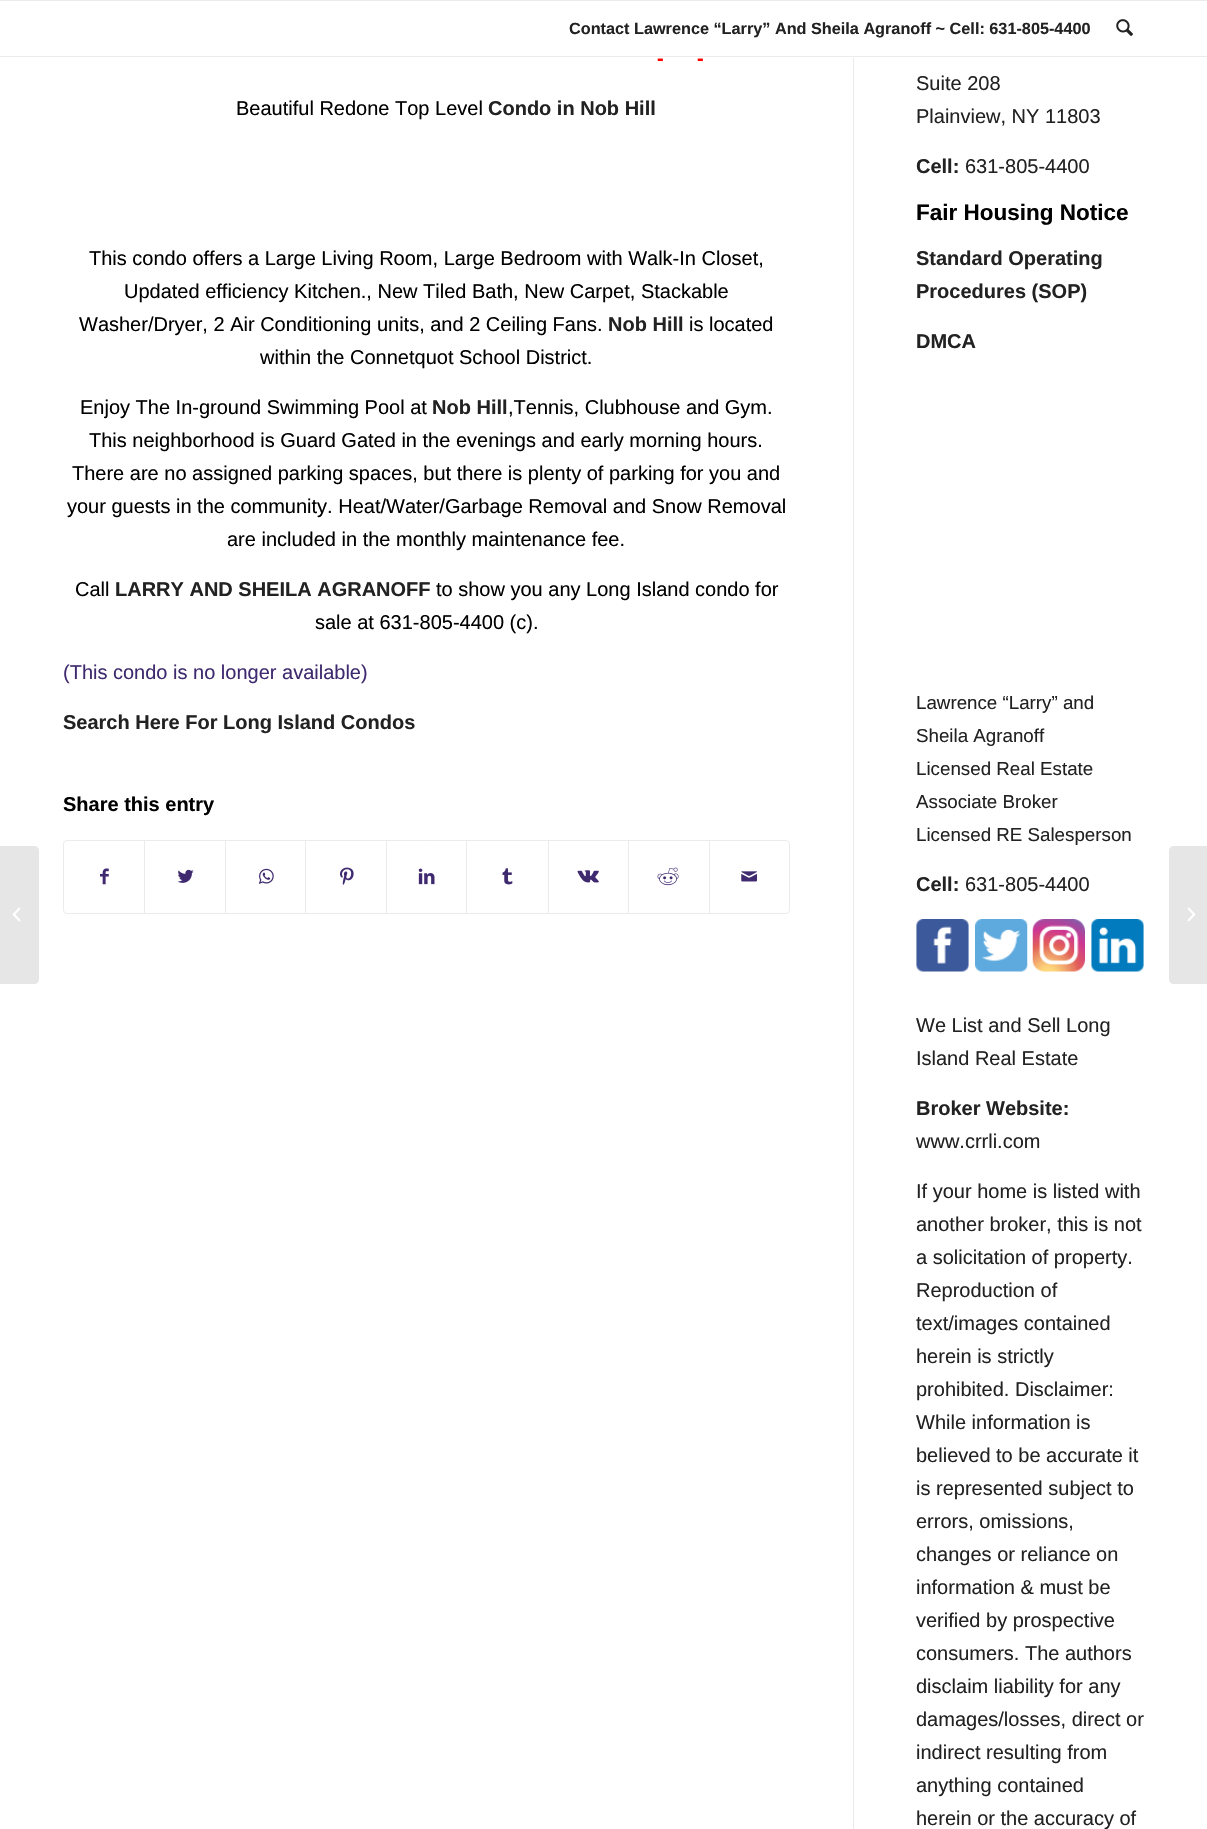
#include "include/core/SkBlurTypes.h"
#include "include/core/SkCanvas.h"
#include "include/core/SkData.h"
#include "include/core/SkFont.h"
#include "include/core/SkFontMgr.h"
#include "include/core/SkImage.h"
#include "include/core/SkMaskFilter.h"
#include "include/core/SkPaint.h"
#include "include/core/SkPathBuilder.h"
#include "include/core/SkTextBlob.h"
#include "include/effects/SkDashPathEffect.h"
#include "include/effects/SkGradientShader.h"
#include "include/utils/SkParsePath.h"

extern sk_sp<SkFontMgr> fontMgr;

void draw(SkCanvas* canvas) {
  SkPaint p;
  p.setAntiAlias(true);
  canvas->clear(SK_ColorWHITE);
  p.setColor(SkColorSetRGB(235, 235, 235));
  canvas->drawRect(SkRect::MakeLTRB(0, 0, 1207, 1), p);
  canvas->drawRect(SkRect::MakeLTRB(0, 56, 1207, 57), p);
  canvas->drawImageRect(SkImages::DeferredFromEncodedData(SkData::MakeFromFileName("images/1.png")), SkRect::MakeLTRB(1116, 19, 1133, 36), SkSamplingOptions());
  p.setColor(SkColorSetRGB(230, 230, 230));
  canvas->drawPath(SkPathBuilder().moveTo(0, 846).lineTo(34, 846).cubicTo(37, 846, 39, 848, 39, 851).lineTo(39, 979).cubicTo(39, 982, 37, 984, 34, 984).lineTo(0, 984).close().detach(), p);
  canvas->drawImageRect(SkImages::DeferredFromEncodedData(SkData::MakeFromFileName("images/2.png")), SkRect::MakeLTRB(12, 907, 21, 922), SkSamplingOptions());
  p.setStyle(SkPaint::kStroke_Style);
  p.setStrokeWidth(1);
  p.setColor(SkColorSetRGB(235, 235, 235));
  canvas->drawRoundRect(SkRect::MakeLTRB(63.5f, 840.5f, 789.5f, 913.5f), 3.5f, 3.5f, p);
  canvas->drawImageRect(SkImages::DeferredFromEncodedData(SkData::MakeFromFileName("images/3.png")), SkRect::MakeLTRB(100, 868, 109, 885), SkSamplingOptions());
  p.setStyle(SkPaint::kFill_Style);
  canvas->drawRect(SkRect::MakeLTRB(144, 841, 145, 913), p);
  canvas->drawImageRect(SkImages::DeferredFromEncodedData(SkData::MakeFromFileName("images/4.png")), SkRect::MakeLTRB(177, 869, 194, 883), SkSamplingOptions());
  canvas->drawRect(SkRect::MakeLTRB(225, 841, 226, 913), p);
  canvas->drawImageRect(SkImages::DeferredFromEncodedData(SkData::MakeFromFileName("images/5.png")), SkRect::MakeLTRB(258, 868, 274, 884), SkSamplingOptions());
  canvas->drawRect(SkRect::MakeLTRB(305, 841, 306, 913), p);
  canvas->drawImageRect(SkImages::DeferredFromEncodedData(SkData::MakeFromFileName("images/6.png")), SkRect::MakeLTRB(340, 867, 354, 885), SkSamplingOptions());
  canvas->drawRect(SkRect::MakeLTRB(386, 841, 387, 913), p);
  canvas->drawImageRect(SkImages::DeferredFromEncodedData(SkData::MakeFromFileName("images/7.png")), SkRect::MakeLTRB(418, 868, 435, 885), SkSamplingOptions());
  canvas->drawRect(SkRect::MakeLTRB(466, 841, 467, 913), p);
  canvas->drawImageRect(SkImages::DeferredFromEncodedData(SkData::MakeFromFileName("images/8.png")), SkRect::MakeLTRB(502, 868, 513, 885), SkSamplingOptions());
  canvas->drawRect(SkRect::MakeLTRB(548, 841, 549, 913), p);
  canvas->drawImageRect(SkImages::DeferredFromEncodedData(SkData::MakeFromFileName("images/9.png")), SkRect::MakeLTRB(577, 870, 599, 883), SkSamplingOptions());
  canvas->drawRect(SkRect::MakeLTRB(628, 841, 629, 913), p);
  canvas->drawImageRect(SkImages::DeferredFromEncodedData(SkData::MakeFromFileName("images/10.png")), SkRect::MakeLTRB(657, 867, 679, 886), SkSamplingOptions());
  canvas->drawRect(SkRect::MakeLTRB(709, 841, 710, 913), p);
  canvas->drawImageRect(SkImages::DeferredFromEncodedData(SkData::MakeFromFileName("images/11.png")), SkRect::MakeLTRB(741, 871, 757, 882), SkSamplingOptions());
  canvas->drawRect(SkRect::MakeLTRB(853, 58, 854, 1829), p);
  canvas->drawImageRect(SkImages::DeferredFromEncodedData(SkData::MakeFromFileName("images/12.png")), SkRect::MakeLTRB(916, 919, 969, 972), SkSamplingOptions());
  canvas->drawImageRect(SkImages::DeferredFromEncodedData(SkData::MakeFromFileName("images/13.png")), SkRect::MakeLTRB(975, 919, 1028, 972), SkSamplingOptions());
  canvas->drawImageRect(SkImages::DeferredFromEncodedData(SkData::MakeFromFileName("images/14.png")), SkRect::MakeLTRB(1032, 919, 1085, 972), SkSamplingOptions());
  canvas->drawImageRect(SkImages::DeferredFromEncodedData(SkData::MakeFromFileName("images/15.png")), SkRect::MakeLTRB(1091, 919, 1144, 972), SkSamplingOptions());
  p.setColor(SkColorSetRGB(230, 230, 230));
  canvas->drawPath(SkPathBuilder().moveTo(1174, 846).lineTo(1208, 846).lineTo(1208, 984).lineTo(1174, 984).cubicTo(1171, 984, 1169, 982, 1169, 979).lineTo(1169, 851).cubicTo(1169, 848, 1171, 846, 1174, 846).close().detach(), p);
  canvas->drawImageRect(SkImages::DeferredFromEncodedData(SkData::MakeFromFileName("images/16.png")), SkRect::MakeLTRB(1187, 907, 1196, 922), SkSamplingOptions());
  SkFont font1(fontMgr->matchFamilyStyle("Liberation Sans", SkFontStyle::Bold()), 16.25f);
  font1.setSubpixel(true);
  p.setColor(SkColorSetRGB(34, 34, 34));
  canvas->drawString("Contact Lawrence “Larry” And Sheila Agranoff ~ Cell: 631-805-4400", 569, 34, font1, p);
  SkFont font2(fontMgr->matchFamilyStyle("Liberation Sans", SkFontStyle::Bold()), 20);
  font2.setSubpixel(true);
  p.setColor(SkColorSetRGB(255, 0, 0));
  canvas->drawString("-", 657, 65, font2, p);
  canvas->drawString("-", 697, 65, font2, p);
  SkFont font3(fontMgr->matchFamilyStyle("Liberation Sans", SkFontStyle::Normal()), 20);
  font3.setSubpixel(true);
  p.setColor(SK_ColorBLACK);
  canvas->drawString("Beautiful Redone Top Level", 236, 115, font3, p);
  p.setColor(SkColorSetRGB(34, 34, 34));
  canvas->drawString("Condo in Nob Hill", 488, 115, font2, p);
  p.setColor(SK_ColorBLACK);
  canvas->drawString("This condo offers a Large Living Room, Large Bedroom with Walk-In Closet,", 89, 265, font3, p);
  canvas->drawString("Updated efficiency Kitchen., New Tiled Bath, New Carpet, Stackable", 124, 298, font3, p);
  canvas->drawString("Washer/Dryer, 2 Air Conditioning units, and 2 Ceiling Fans.", 79, 331, font3, p);
  p.setColor(SkColorSetRGB(34, 34, 34));
  canvas->drawString("Nob Hill", 608, 331, font2, p);
  p.setColor(SK_ColorBLACK);
  canvas->drawString("is located", 689, 331, font3, p);
  canvas->drawString("within the Connetquot School District.", 260, 364, font3, p);
  canvas->drawString("Enjoy The In-ground Swimming Pool at", 80, 414, font3, p);
  p.setColor(SkColorSetRGB(34, 34, 34));
  canvas->drawString("Nob Hill", 432, 414, font2, p);
  p.setColor(SK_ColorBLACK);
  canvas->drawString(",Tennis, Clubhouse and Gym.", 508, 414, font3, p);
  canvas->drawString("This neighborhood is Guard Gated in the evenings and early morning hours.", 89, 447, font3, p);
  canvas->drawString("There are no assigned parking spaces, but there is plenty of parking for you and", 72, 480, font3, p);
  canvas->drawString("your guests in the community. Heat/Water/Garbage Removal and Snow Removal", 67, 513, font3, p);
  canvas->drawString("are included in the monthly maintenance fee.", 227, 546, font3, p);
  canvas->drawString("Call", 75, 596, font3, p);
  p.setColor(SkColorSetRGB(34, 34, 34));
  canvas->drawString("LARRY AND SHEILA AGRANOFF", 115, 596, font2, p);
  p.setColor(SK_ColorBLACK);
  canvas->drawString("to show you any Long Island condo for", 436, 596, font3, p);
  canvas->drawString("sale at 631-805-4400 (c).", 315, 629, font3, p);
  p.setColor(SkColorSetRGB(63, 42, 111));
  canvas->drawString("(This condo is no longer available)", 63, 679, font3, p);
  p.setColor(SkColorSetRGB(34, 34, 34));
  canvas->drawString("Search Here For Long Island Condos", 63, 729, font2, p);
  p.setColor(SK_ColorBLACK);
  canvas->drawString("Share this entry", 63, 811, font2, p);
  p.setColor(SkColorSetRGB(34, 34, 34));
  canvas->drawString("Suite 208", 916, 90, font3, p);
  canvas->drawString("Plainview, NY 11803", 916, 123, font3, p);
  canvas->drawString("Cell:", 916, 173, font2, p);
  canvas->drawString("631-805-4400", 965, 173, font3, p);
  SkFont font4(fontMgr->matchFamilyStyle("Liberation Sans", SkFontStyle::Bold()), 22.5f);
  font4.setSubpixel(true);
  p.setColor(SK_ColorBLACK);
  canvas->drawString("Fair Housing Notice", 916, 220, font4, p);
  p.setColor(SkColorSetRGB(34, 34, 34));
  canvas->drawString("Standard Operating", 916, 265, font2, p);
  canvas->drawString("Procedures (SOP)", 916, 298, font2, p);
  canvas->drawString("DMCA", 916, 348, font2, p);
  SkFont font5(fontMgr->matchFamilyStyle("Liberation Sans", SkFontStyle::Normal()), 18.75f);
  font5.setSubpixel(true);
  canvas->drawString("Lawrence “Larry” and", 916, 709, font5, p);
  canvas->drawString("Sheila Agranoff", 916, 742, font5, p);
  canvas->drawString("Licensed Real Estate", 916, 775, font5, p);
  canvas->drawString("Associate Broker", 916, 808, font5, p);
  canvas->drawString("Licensed RE Salesperson", 916, 841, font5, p);
  canvas->drawString("Cell:", 916, 891, font2, p);
  canvas->drawString("631-805-4400", 965, 891, font3, p);
  canvas->drawString("We List and Sell Long", 916, 1032, font3, p);
  canvas->drawString("Island Real Estate", 916, 1065, font3, p);
  canvas->drawString("Broker Website:", 916, 1115, font2, p);
  canvas->drawString("www.crrli.com", 916, 1148, font3, p);
  canvas->drawString("If your home is listed with", 916, 1198, font3, p);
  canvas->drawString("another broker, this is not", 916, 1231, font3, p);
  canvas->drawString("a solicitation of property.", 916, 1264, font3, p);
  canvas->drawString("Reproduction of", 916, 1297, font3, p);
  canvas->drawString("text/images contained", 916, 1330, font3, p);
  canvas->drawString("herein is strictly", 916, 1363, font3, p);
  canvas->drawString("prohibited. Disclaimer:", 916, 1396, font3, p);
  canvas->drawString("While information is", 916, 1429, font3, p);
  canvas->drawString("believed to be accurate it", 916, 1462, font3, p);
  canvas->drawString("is represented subject to", 916, 1495, font3, p);
  canvas->drawString("errors, omissions,", 916, 1528, font3, p);
  canvas->drawString("changes or reliance on", 916, 1561, font3, p);
  canvas->drawString("information & must be", 916, 1594, font3, p);
  canvas->drawString("verified by prospective", 916, 1627, font3, p);
  canvas->drawString("consumers. The authors", 916, 1660, font3, p);
  canvas->drawString("disclaim liability for any", 916, 1693, font3, p);
  canvas->drawString("damages/losses, direct or", 916, 1726, font3, p);
  canvas->drawString("indirect resulting from", 916, 1759, font3, p);
  canvas->drawString("anything contained", 916, 1792, font3, p);
  canvas->drawString("herein or the accuracy of", 916, 1825, font3, p);
}
